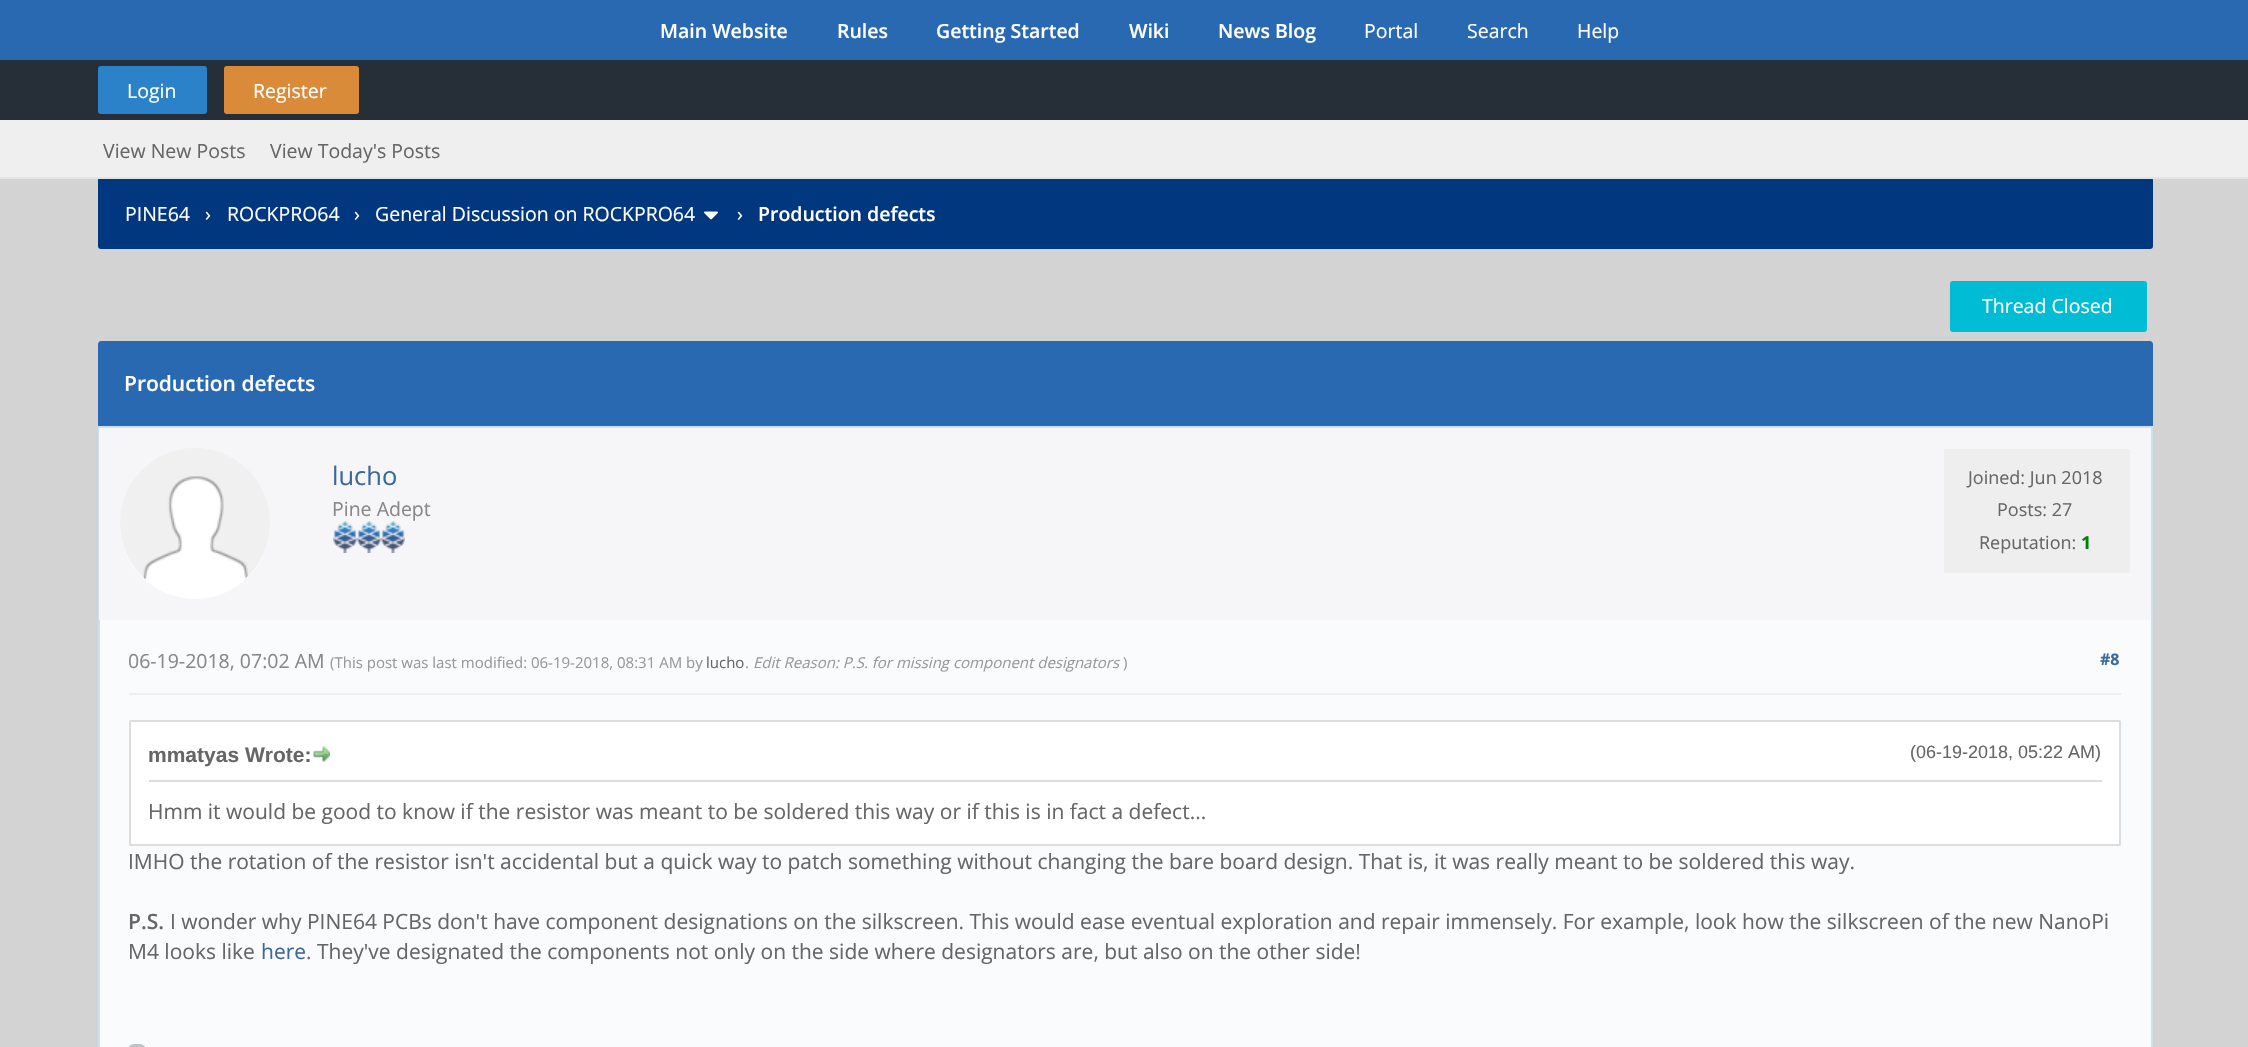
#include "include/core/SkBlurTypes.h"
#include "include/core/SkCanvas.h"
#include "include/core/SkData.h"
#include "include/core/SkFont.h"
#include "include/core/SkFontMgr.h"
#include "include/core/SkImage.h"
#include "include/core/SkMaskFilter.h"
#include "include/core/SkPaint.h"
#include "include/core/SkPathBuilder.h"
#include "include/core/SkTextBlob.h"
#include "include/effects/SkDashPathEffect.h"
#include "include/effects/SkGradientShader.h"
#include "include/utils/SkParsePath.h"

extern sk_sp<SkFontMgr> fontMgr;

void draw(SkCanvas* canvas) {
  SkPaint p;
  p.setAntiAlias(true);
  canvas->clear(SkColorSetRGB(211, 211, 211));
  p.setColor(SkColorSetRGB(41, 105, 177));
  canvas->drawRect(SkRect::MakeLTRB(0, 0, 2248, 60), p);
  p.setColor(SkColorSetRGB(38, 46, 56));
  canvas->drawRect(SkRect::MakeLTRB(0, 60, 2248, 120), p);
  p.setColor(SkColorSetRGB(44, 130, 201));
  canvas->drawRoundRect(SkRect::MakeLTRB(98, 66, 207, 114), 3, 3, p);
  p.setColor(SkColorSetRGB(217, 139, 58));
  canvas->drawRoundRect(SkRect::MakeLTRB(224, 66, 359, 114), 3, 3, p);
  p.setColor(SkColorSetRGB(239, 239, 239));
  canvas->drawRect(SkRect::MakeLTRB(0, 120, 2248, 177), p);
  p.setColor(SkColorSetRGB(0, 55, 127));
  canvas->drawRoundRect(SkRect::MakeLTRB(98, 177, 2153, 249), 3, 3, p);
  p.setColor(SkColorSetRGB(227, 227, 227));
  canvas->drawRect(SkRect::MakeLTRB(0, 177, 2248, 179), p);
  canvas->drawImageRect(SkImages::DeferredFromEncodedData(SkData::MakeFromFileName("images/1.png")), SkRect::MakeLTRB(704, 211, 718, 220), SkSamplingOptions());
  p.setColor(SkColorSetRGB(0, 188, 212));
  canvas->drawRoundRect(SkRect::MakeLTRB(1950, 281, 2147, 332), 3, 3, p);
  p.setColor(SkColorSetRGB(41, 105, 177));
  canvas->drawPath(SkPathBuilder().moveTo(101, 341).lineTo(2150, 341).cubicTo(2151.5f, 341, 2153, 342.5f, 2153, 344).lineTo(2153, 426).lineTo(98, 426).lineTo(98, 344).cubicTo(98, 342.5f, 99.5f, 341, 101, 341).close().detach(), p);
  p.setColor(SkColorSetRGB(250, 251, 252));
  canvas->drawRect(SkRect::MakeLTRB(100, 620, 2151, 1047), p);
  p.setStyle(SkPaint::kStroke_Style);
  p.setStrokeWidth(2);
  p.setColor(SkColorSetRGB(205, 224, 241));
  canvas->drawRect(SkRect::MakeLTRB(99, 427, 2152, 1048), p);
  p.setStyle(SkPaint::kFill_Style);
  p.setColor(SkColorSetRGB(246, 245, 247));
  canvas->drawRect(SkRect::MakeLTRB(99, 428, 2151, 620), p);
  p.setColor(SK_ColorWHITE);
  canvas->drawCircle(195, 524, 75, p);
  canvas->drawImageRect(SkImages::DeferredFromEncodedData(SkData::MakeFromFileName("images/2.png")), SkRect::MakeLTRB(120, 448, 270, 580), SkSamplingOptions());
  canvas->drawImageRect(SkImages::DeferredFromEncodedData(SkData::MakeFromFileName("images/3.png")), SkRect::MakeLTRB(333, 521, 357, 553), SkSamplingOptions());
  canvas->drawImageRect(SkImages::DeferredFromEncodedData(SkData::MakeFromFileName("images/3.png")), SkRect::MakeLTRB(357, 521, 381, 553), SkSamplingOptions());
  canvas->drawImageRect(SkImages::DeferredFromEncodedData(SkData::MakeFromFileName("images/3.png")), SkRect::MakeLTRB(381, 521, 405, 553), SkSamplingOptions());
  p.setColor(SkColorSetRGB(238, 238, 238));
  canvas->drawRect(SkRect::MakeLTRB(1944, 449, 2130, 573), p);
  canvas->drawRect(SkRect::MakeLTRB(129, 693, 2121, 695), p);
  p.setColor(SK_ColorWHITE);
  canvas->drawRoundRect(SkRect::MakeLTRB(130, 721, 2120, 845), 0.5f, 0.5f, p);
  p.setStyle(SkPaint::kStroke_Style);
  p.setColor(SkColorSetRGB(221, 221, 221));
  canvas->drawRoundRect(SkRect::MakeLTRB(130, 721, 2120, 845), 0.5f, 0.5f, p);
  p.setStyle(SkPaint::kFill_Style);
  canvas->drawRect(SkRect::MakeLTRB(149, 780, 2102, 782), p);
  canvas->drawImageRect(SkImages::DeferredFromEncodedData(SkData::MakeFromFileName("images/4.png")), SkRect::MakeLTRB(313, 746, 330, 762), SkSamplingOptions());
  p.setColor(SkColorSetRGB(189, 195, 199));
  canvas->drawRoundRect(SkRect::MakeLTRB(128, 1044, 146, 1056), 9, 9, p);
  SkFont font1(fontMgr->matchFamilyStyle("Open Sans", SkFontStyle(600, SkFontStyle::kNormal_Width, SkFontStyle::kUpright_Slant)), 19.5f);
  font1.setSubpixel(true);
  p.setColor(SK_ColorWHITE);
  canvas->drawString("Main Website", 660, 38, font1, p);
  canvas->drawString("Rules", 837, 38, font1, p);
  canvas->drawString("Getting Started", 936, 38, font1, p);
  canvas->drawString("Wiki", 1129, 38, font1, p);
  canvas->drawString("News Blog", 1218, 38, font1, p);
  SkFont font2(fontMgr->matchFamilyStyle("Open Sans", SkFontStyle::Normal()), 19.5f);
  font2.setSubpixel(true);
  canvas->drawString("Portal", 1364, 38, font2, p);
  canvas->drawString("Search", 1467, 38, font2, p);
  canvas->drawString("Help", 1577, 38, font2, p);
  canvas->drawString("Login", 127, 98, font2, p);
  canvas->drawString("Register", 253, 98, font2, p);
  p.setColor(SkColorSetRGB(102, 102, 102));
  canvas->drawString("View New Posts", 103, 158, font2, p);
  canvas->drawString("View Today's Posts", 270, 158, font2, p);
  p.setColor(SK_ColorWHITE);
  canvas->drawString("PINE64", 125, 221, font2, p);
  canvas->drawString("›", 205, 221, font2, p);
  canvas->drawString("ROCKPRO64", 227, 221, font2, p);
  canvas->drawString("›", 354, 221, font2, p);
  canvas->drawString("General Discussion on ROCKPRO64", 375, 221, font2, p);
  canvas->drawString("›", 737, 221, font2, p);
  canvas->drawString("Production defects", 758, 221, font1, p);
  canvas->drawString("Thread Closed", 1982, 313, font2, p);
  SkFont font3(fontMgr->matchFamilyStyle("Open Sans", SkFontStyle(600, SkFontStyle::kNormal_Width, SkFontStyle::kUpright_Slant)), 21);
  font3.setSubpixel(true);
  canvas->drawString("Production defects", 124, 391, font3, p);
  SkFont font4(fontMgr->matchFamilyStyle("Open Sans", SkFontStyle::Normal()), 25.5f);
  font4.setSubpixel(true);
  p.setColor(SkColorSetRGB(60, 105, 156));
  canvas->drawString("lucho", 332, 485, font4, p);
  p.setColor(SkColorSetRGB(136, 136, 136));
  canvas->drawString("Pine Adept", 332, 516, font2, p);
  SkFont font5(fontMgr->matchFamilyStyle("Open Sans", SkFontStyle::Normal()), 18);
  font5.setSubpixel(true);
  p.setColor(SkColorSetRGB(102, 102, 102));
  canvas->drawString("Joined: Jun 2018", 1968, 484, font5, p);
  canvas->drawString("Posts: 27", 1997, 516, font5, p);
  canvas->drawString("Reputation:", 1979, 549, font5, p);
  SkFont font6(fontMgr->matchFamilyStyle("Open Sans", SkFontStyle::Bold()), 18);
  font6.setSubpixel(true);
  p.setColor(SkColorSetRGB(0, 128, 0));
  canvas->drawString("1", 2081, 549, font6, p);
  p.setColor(SkColorSetRGB(136, 136, 136));
  canvas->drawString("06-19-2018, 07:02 AM", 128, 668, font2, p);
  SkFont font7(fontMgr->matchFamilyStyle("Open Sans", SkFontStyle::Normal()), 15);
  font7.setSubpixel(true);
  p.setColor(SkColorSetRGB(153, 153, 153));
  canvas->drawString("(This post was last modified: 06-19-2018, 08:31 AM by", 330, 668, font7, p);
  p.setColor(SkColorSetRGB(102, 102, 102));
  canvas->drawString("lucho", 706, 668, font7, p);
  p.setColor(SkColorSetRGB(153, 153, 153));
  canvas->drawString(".", 745, 668, font7, p);
  SkFont font8(fontMgr->matchFamilyStyle("Open Sans", SkFontStyle::Italic()), 15);
  font8.setSubpixel(true);
  canvas->drawString("Edit Reason: P.S. for missing component designators", 753, 668, font8, p);
  canvas->drawString(")", 1123, 668, font7, p);
  SkFont font9(fontMgr->matchFamilyStyle("Open Sans", SkFontStyle::Bold()), 16);
  font9.setSubpixel(true);
  p.setColor(SkColorSetRGB(60, 105, 156));
  canvas->drawString("#8", 2100, 665, font9, p);
  SkFont font10(fontMgr->matchFamilyStyle("Liberation Sans", SkFontStyle::Bold()), 21);
  font10.setSubpixel(true);
  p.setColor(SkColorSetRGB(102, 102, 102));
  canvas->drawString("mmatyas Wrote:", 148, 762, font10, p);
  SkFont font11(fontMgr->matchFamilyStyle("Liberation Sans", SkFontStyle::Normal()), 18);
  font11.setSubpixel(true);
  canvas->drawString("(06-19-2018, 05:22 AM)", 1910, 758, font11, p);
  SkFont font12(fontMgr->matchFamilyStyle("Open Sans", SkFontStyle::Normal()), 21);
  font12.setSubpixel(true);
  canvas->drawString("Hmm it would be good to know if the resistor was meant to be soldered this way or if this is in fact a defect...", 148, 819, font12, p);
  canvas->drawString("IMHO the rotation of the resistor isn't accidental but a quick way to patch something without changing the bare board design. That is, it was really meant to be soldered this way.", 128, 869, font12, p);
  canvas->drawString("P.S.", 128, 929, font3, p);
  canvas->drawString("I wonder why PINE64 PCBs don't have component designations on the silkscreen. This would ease eventual exploration and repair immensely. For example, look how the silkscreen of the new NanoPi", 170, 929, font12, p);
  canvas->drawString("M4 looks like", 128, 959, font12, p);
  p.setColor(SkColorSetRGB(60, 105, 156));
  canvas->drawString("here", 261, 959, font12, p);
  p.setColor(SkColorSetRGB(102, 102, 102));
  canvas->drawString(". They've designated the components not only on the side where designators are, but also on the other side!", 306, 959, font12, p);
}
